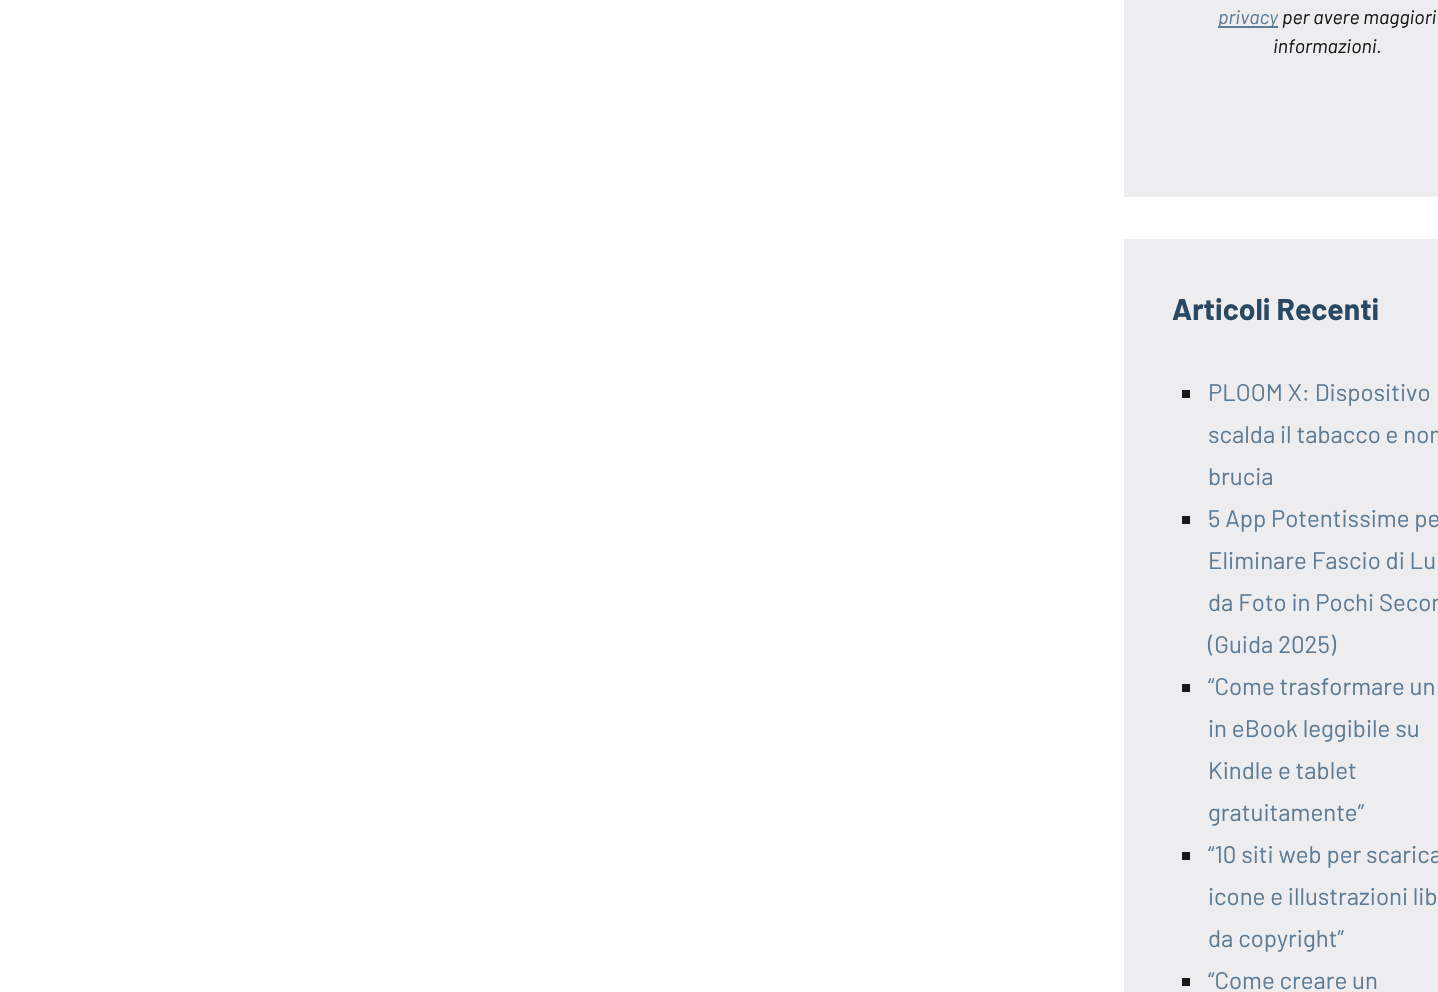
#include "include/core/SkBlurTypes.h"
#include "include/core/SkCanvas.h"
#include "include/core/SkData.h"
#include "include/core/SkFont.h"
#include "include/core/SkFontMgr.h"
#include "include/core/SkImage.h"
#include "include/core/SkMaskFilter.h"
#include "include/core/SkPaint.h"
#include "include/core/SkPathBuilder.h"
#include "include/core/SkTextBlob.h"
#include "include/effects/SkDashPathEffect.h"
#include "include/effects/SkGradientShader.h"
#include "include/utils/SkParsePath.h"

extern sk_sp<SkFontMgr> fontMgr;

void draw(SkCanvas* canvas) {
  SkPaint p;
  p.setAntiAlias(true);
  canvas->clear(SK_ColorWHITE);
  p.setColor(SkColorSetRGB(237, 237, 239));
  canvas->drawRect(SkRect::MakeLTRB(1124, 0, 1438, 197), p);
  p.setColor(SkColorSetRGB(93, 123, 148));
  canvas->drawRect(SkRect::MakeLTRB(1218, 26, 1278, 28), p);
  p.setColor(SkColorSetRGB(237, 237, 239));
  canvas->drawRect(SkRect::MakeLTRB(1124, 239, 1438, 992), p);
  p.setColor(SkColorSetRGB(24, 24, 24));
  canvas->drawRect(SkRect::MakeLTRB(1182, 390, 1190, 398), p);
  canvas->drawRect(SkRect::MakeLTRB(1182, 516, 1190, 524), p);
  canvas->drawRect(SkRect::MakeLTRB(1182, 684, 1190, 692), p);
  canvas->drawRect(SkRect::MakeLTRB(1182, 852, 1190, 860), p);
  canvas->drawRect(SkRect::MakeLTRB(1182, 978, 1190, 986), p);
  SkFont font1(fontMgr->matchFamilyStyle("Barlow", SkFontStyle::Italic()), 19.5f);
  font1.setSubpixel(true);
  p.setColor(SkColorSetRGB(93, 123, 148));
  canvas->drawString("privacy", 1218, 24, font1, p);
  p.setColor(SkColorSetRGB(24, 24, 24));
  canvas->drawString("per avere maggiori", 1282, 24, font1, p);
  canvas->drawString("informazioni.", 1273, 53, font1, p);
  SkFont font2(fontMgr->matchFamilyStyle("Barlow", SkFontStyle::Bold()), 30);
  font2.setSubpixel(true);
  p.setColor(SkColorSetRGB(42, 72, 97));
  canvas->drawString("Articoli Recenti", 1172, 320, font2, p);
  SkFont font3(fontMgr->matchFamilyStyle("Barlow", SkFontStyle::Normal()), 24);
  font3.setSubpixel(true);
  p.setColor(SkColorSetRGB(93, 123, 148));
  canvas->drawString("PLOOM X: Dispositivo", 1208, 401, font3, p);
  canvas->drawString("scalda il tabacco e non", 1208, 443, font3, p);
  canvas->drawString("brucia", 1208, 485, font3, p);
  canvas->drawString("5 App Potentissime pe", 1208, 527, font3, p);
  canvas->drawString("Eliminare Fascio di Lu", 1208, 569, font3, p);
  canvas->drawString("da Foto in Pochi Secon", 1208, 611, font3, p);
  canvas->drawString("(Guida 2025)", 1208, 653, font3, p);
  canvas->drawString("“Come trasformare un", 1208, 695, font3, p);
  canvas->drawString("in eBook leggibile su", 1208, 737, font3, p);
  canvas->drawString("Kindle e tablet", 1208, 779, font3, p);
  canvas->drawString("gratuitamente”", 1208, 821, font3, p);
  canvas->drawString("“10 siti web per scarica", 1208, 863, font3, p);
  canvas->drawString("icone e illustrazioni lib", 1208, 905, font3, p);
  canvas->drawString("da copyright”", 1208, 947, font3, p);
  canvas->drawString("“Come creare un", 1208, 989, font3, p);
}
